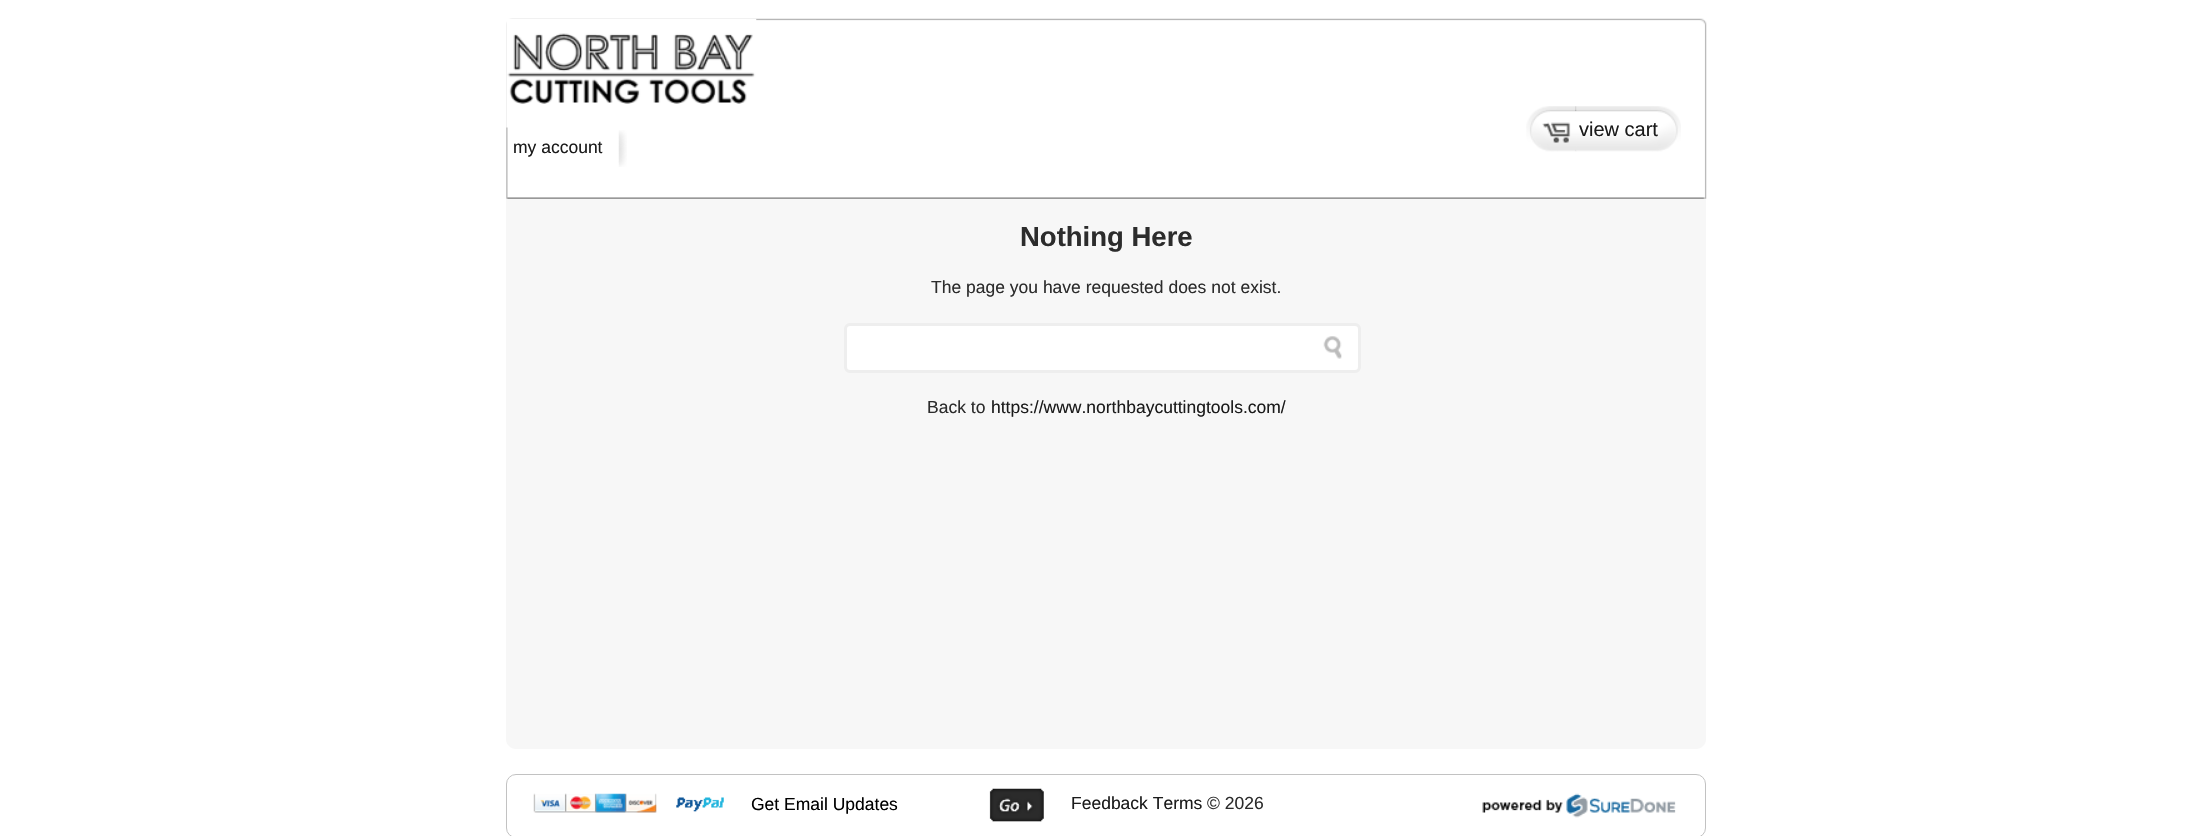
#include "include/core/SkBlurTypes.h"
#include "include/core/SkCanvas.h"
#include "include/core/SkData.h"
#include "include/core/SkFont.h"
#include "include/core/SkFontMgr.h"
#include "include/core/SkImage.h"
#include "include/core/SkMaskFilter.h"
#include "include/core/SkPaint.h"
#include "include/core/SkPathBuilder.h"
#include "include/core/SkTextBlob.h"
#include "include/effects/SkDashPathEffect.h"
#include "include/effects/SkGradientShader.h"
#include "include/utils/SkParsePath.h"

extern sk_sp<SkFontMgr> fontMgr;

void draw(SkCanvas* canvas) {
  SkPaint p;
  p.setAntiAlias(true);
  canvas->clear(SK_ColorWHITE);
  canvas->drawImageRect(SkImages::DeferredFromEncodedData(SkData::MakeFromFileName("images/1.png")), SkRect::MakeLTRB(506, 18, 1707, 199), SkSamplingOptions());
  canvas->drawImageRect(SkImages::DeferredFromEncodedData(SkData::MakeFromFileName("images/2.png")), SkRect::MakeLTRB(506, 18, 757, 128), SkSamplingOptions());
  canvas->drawImageRect(SkImages::DeferredFromEncodedData(SkData::MakeFromFileName("images/3.png")), SkRect::MakeLTRB(1575, 106, 1681, 152), SkSamplingOptions());
  canvas->drawImageRect(SkImages::DeferredFromEncodedData(SkData::MakeFromFileName("images/4.png")), SkRect::MakeLTRB(1526, 106, 1577, 152), SkSamplingOptions());
  canvas->drawImageRect(SkImages::DeferredFromEncodedData(SkData::MakeFromFileName("images/5.png")), SkRect::MakeLTRB(618, 130, 627, 167), SkSamplingOptions());
  p.setColor(SkColorSetRGB(247, 247, 247));
  canvas->drawPath(SkPathBuilder().moveTo(506, 199).lineTo(1706, 199).lineTo(1706, 739).cubicTo(1706, 744.5f, 1701.5f, 749, 1696, 749).lineTo(516, 749).cubicTo(510.5f, 749, 506, 744.5f, 506, 739).close().detach(), p);
  p.setColor(SK_ColorWHITE);
  canvas->drawRoundRect(SkRect::MakeLTRB(845.5f, 324.5f, 1359.5f, 371.5f), 4.5f, 4.5f, p);
  p.setStyle(SkPaint::kStroke_Style);
  p.setStrokeWidth(3);
  p.setColor(SkColorSetRGB(238, 238, 238));
  canvas->drawRoundRect(SkRect::MakeLTRB(845.5f, 324.5f, 1359.5f, 371.5f), 4.5f, 4.5f, p);
  canvas->drawImageRect(SkImages::DeferredFromEncodedData(SkData::MakeFromFileName("images/6.png")), SkRect::MakeLTRB(1323, 336, 1342, 359), SkSamplingOptions());
  p.setStrokeWidth(1);
  p.setColor(SkColorSetRGB(194, 194, 194));
  canvas->drawRoundRect(SkRect::MakeLTRB(506.5f, 774.5f, 1705.5f, 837.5f), 9.5f, 9.5f, p);
  canvas->drawImageRect(SkImages::DeferredFromEncodedData(SkData::MakeFromFileName("images/7.png")), SkRect::MakeLTRB(533, 793, 657, 813), SkSamplingOptions());
  canvas->drawImageRect(SkImages::DeferredFromEncodedData(SkData::MakeFromFileName("images/8.png")), SkRect::MakeLTRB(676, 797, 724, 812), SkSamplingOptions());
  canvas->drawImageRect(SkImages::DeferredFromEncodedData(SkData::MakeFromFileName("images/9.png")), SkRect::MakeLTRB(989, 788, 1044, 822), SkSamplingOptions());
  canvas->drawImageRect(SkImages::DeferredFromEncodedData(SkData::MakeFromFileName("images/10.png")), SkRect::MakeLTRB(1482, 793, 1676, 818), SkSamplingOptions());
  SkFont font1(fontMgr->matchFamilyStyle("Liberation Sans", SkFontStyle::Normal()), 20);
  font1.setSubpixel(true);
  p.setStyle(SkPaint::kFill_Style);
  p.setColor(SkColorSetRGB(27, 27, 27));
  canvas->drawString("view cart", 1579, 136, font1, p);
  SkFont font2(fontMgr->matchFamilyStyle("Liberation Sans", SkFontStyle::Normal()), 17.5f);
  font2.setSubpixel(true);
  canvas->drawString("my account", 513, 153, font2, p);
  SkFont font3(fontMgr->matchFamilyStyle("Liberation Sans", SkFontStyle::Bold()), 27.5f);
  font3.setSubpixel(true);
  p.setColor(SkColorSetRGB(44, 44, 44));
  canvas->drawString("Nothing Here", 1020, 246, font3, p);
  canvas->drawString("The page you have requested does not exist.", 931, 293, font2, p);
  canvas->drawString("Back to", 927, 413, font2, p);
  p.setColor(SkColorSetRGB(27, 27, 27));
  canvas->drawString("https://www.northbaycuttingtools.com/", 991, 413, font2, p);
  p.setColor(SK_ColorBLACK);
  canvas->drawString("Get Email Updates", 751, 810, font2, p);
  p.setColor(SkColorSetRGB(27, 27, 27));
  canvas->drawString("Feedback Terms", 1071, 809, font2, p);
  p.setColor(SkColorSetRGB(44, 44, 44));
  canvas->drawString("© 2026", 1207, 809, font2, p);
}
